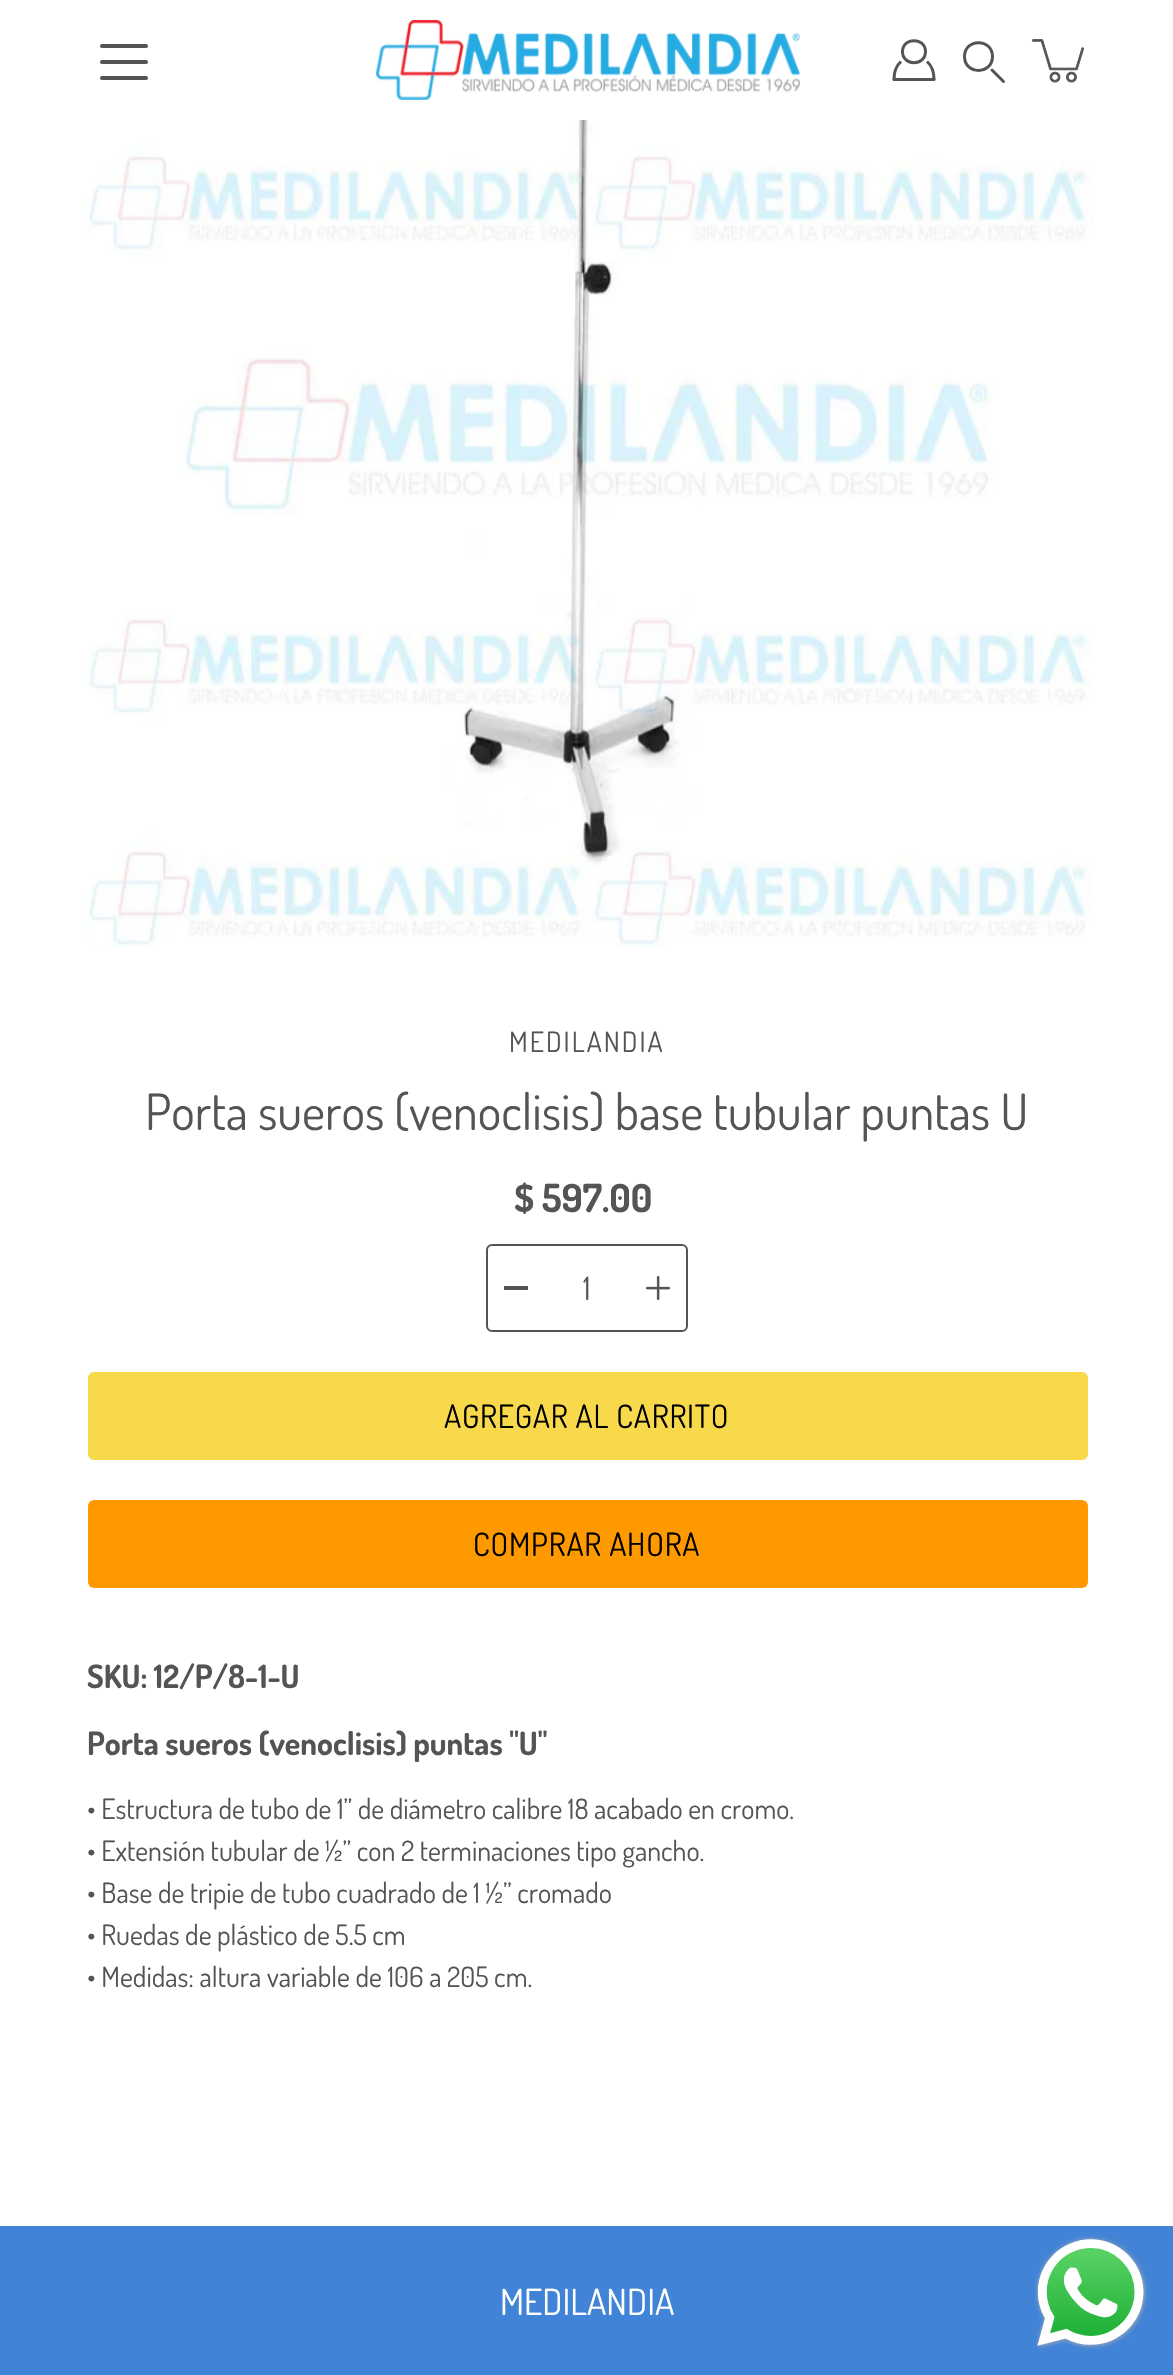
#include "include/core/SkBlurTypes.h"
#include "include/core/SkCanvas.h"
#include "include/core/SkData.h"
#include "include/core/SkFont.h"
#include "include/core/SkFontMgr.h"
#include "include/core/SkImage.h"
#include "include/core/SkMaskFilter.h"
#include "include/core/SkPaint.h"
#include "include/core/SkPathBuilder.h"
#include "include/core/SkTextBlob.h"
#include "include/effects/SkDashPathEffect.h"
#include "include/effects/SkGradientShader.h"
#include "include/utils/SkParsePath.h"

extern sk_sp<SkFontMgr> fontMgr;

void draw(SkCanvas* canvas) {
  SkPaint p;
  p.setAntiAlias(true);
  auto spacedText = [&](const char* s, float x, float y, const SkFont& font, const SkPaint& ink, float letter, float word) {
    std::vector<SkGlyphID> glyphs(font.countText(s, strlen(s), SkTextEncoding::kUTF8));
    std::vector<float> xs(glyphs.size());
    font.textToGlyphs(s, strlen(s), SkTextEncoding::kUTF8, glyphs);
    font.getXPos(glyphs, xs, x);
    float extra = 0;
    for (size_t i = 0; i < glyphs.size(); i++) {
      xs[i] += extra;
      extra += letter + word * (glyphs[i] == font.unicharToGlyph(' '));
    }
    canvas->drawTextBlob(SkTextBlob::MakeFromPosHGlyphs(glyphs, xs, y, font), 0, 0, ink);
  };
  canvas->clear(SK_ColorWHITE);
  canvas->drawImageRect(SkImages::DeferredFromEncodedData(SkData::MakeFromFileName("images/1.png")), SkRect::MakeLTRB(376, 20, 800, 100), SkSamplingOptions());
  p.setColor(SkColorSetRGB(84, 84, 84));
  canvas->drawRoundRect(SkRect::MakeLTRB(100, 60, 148, 64), 2, 2, p);
  canvas->drawRoundRect(SkRect::MakeLTRB(100, 44, 148, 48), 2, 2, p);
  canvas->drawRoundRect(SkRect::MakeLTRB(100, 76, 148, 80), 2, 2, p);
  p.setStyle(SkPaint::kStroke_Style);
  p.setStrokeWidth(3);
  canvas->drawPath(SkPathBuilder().moveTo(925.5f, 51.5f).cubicTo(925.5f, 66.5f, 902.5f, 66.5f, 902.5f, 51.5f).cubicTo(902.5f, 37, 925.5f, 37, 925.5f, 51.5f).close().detach(), p);
  p.setStrokeJoin(SkPaint::kRound_Join);
  canvas->drawPath(SkPathBuilder().moveTo(901, 61.5f).cubicTo(896.5f, 65.5f, 894, 71.5f, 894, 79.5f).moveTo(927, 61.5f).cubicTo(931.5f, 65.5f, 934, 71.5f, 934, 79.5f).detach(), p);
  p.setStrokeCap(SkPaint::kRound_Cap);
  canvas->drawPath(SkPathBuilder().moveTo(894, 79.5f).lineTo(934, 79.5f).detach(), p);
  p.setStrokeCap(SkPaint::kButt_Cap);
  p.setStrokeJoin(SkPaint::kMiter_Join);
  canvas->drawPath(SkPathBuilder().moveTo(992.5f, 56.5f).cubicTo(992.5f, 75, 964.5f, 75, 964.5f, 56.5f).cubicTo(964.5f, 38, 992.5f, 38, 992.5f, 56.5f).close().detach(), p);
  p.setStrokeCap(SkPaint::kRound_Cap);
  canvas->drawPath(SkPathBuilder().moveTo(992, 70).lineTo(1003.5f, 81.5f).detach(), p);
  canvas->drawImageRect(SkImages::DeferredFromEncodedData(SkData::MakeFromFileName("images/2.png")), SkRect::MakeLTRB(1031, 39, 1084, 83), SkSamplingOptions());
  canvas->drawImageRect(SkImages::DeferredFromEncodedData(SkData::MakeFromFileName("images/3.png")), SkRect::MakeLTRB(80, 120, 1094, 948), SkSamplingOptions());
  p.setStrokeWidth(2);
  p.setStrokeCap(SkPaint::kButt_Cap);
  canvas->drawRoundRect(SkRect::MakeLTRB(487, 1245, 687, 1331), 5, 5, p);
  p.setStyle(SkPaint::kFill_Style);
  canvas->drawRect(SkRect::MakeLTRB(504, 1286, 528, 1290), p);
  canvas->drawImageRect(SkImages::DeferredFromEncodedData(SkData::MakeFromFileName("images/4.png")), SkRect::MakeLTRB(646, 1276, 670, 1300), SkSamplingOptions());
  p.setColor(SkColorSetRGB(249, 217, 76));
  canvas->drawRoundRect(SkRect::MakeLTRB(89, 1373, 1087, 1459), 5, 5, p);
  p.setStyle(SkPaint::kStroke_Style);
  canvas->drawRoundRect(SkRect::MakeLTRB(89, 1373, 1087, 1459), 5, 5, p);
  p.setStyle(SkPaint::kFill_Style);
  p.setColor(SkColorSetRGB(255, 153, 0));
  canvas->drawRoundRect(SkRect::MakeLTRB(88, 1500, 1088, 1588), 6, 6, p);
  p.setColor(SkColorSetRGB(65, 131, 214));
  canvas->drawRect(SkRect::MakeLTRB(0, 2226, 1173, 2375), p);
  canvas->drawImageRect(SkImages::DeferredFromEncodedData(SkData::MakeFromFileName("images/5.png")), SkRect::MakeLTRB(1034, 2235, 1148, 2350), SkSamplingOptions());
  SkFont font1(fontMgr->matchFamilyStyle("Dosis", SkFontStyle::Normal()), 28);
  font1.setSubpixel(true);
  p.setColor(SkColorSetRGB(84, 84, 84));
  spacedText("MEDILANDIA", 509, 1052, font1, p, 2, 0);
  SkFont font2(fontMgr->matchFamilyStyle("Dosis", SkFontStyle::Normal()), 50);
  font2.setSubpixel(true);
  canvas->drawString("Porta sueros (venoclisis) base tubular puntas U", 145, 1130, font2, p);
  SkFont font3(fontMgr->matchFamilyStyle("Dosis", SkFontStyle::Bold()), 38.5f);
  font3.setSubpixel(true);
  canvas->drawString("$ 597.00", 514, 1212, font3, p);
  SkFont font4(fontMgr->matchFamilyStyle("Dosis", SkFontStyle::Normal()), 32);
  font4.setSubpixel(true);
  canvas->drawString("1", 583, 1300, font4, p);
  p.setColor(SK_ColorBLACK);
  spacedText("AGREGAR AL CARRITO", 444, 1428, font4, p, 0.75f, 0);
  spacedText("COMPRAR AHORA", 473, 1556, font4, p, 0.75f, 0);
  SkFont font5(fontMgr->matchFamilyStyle("Dosis", SkFontStyle::Bold()), 32);
  font5.setSubpixel(true);
  p.setColor(SkColorSetRGB(84, 84, 84));
  canvas->drawString("SKU: 12/P/8-1-U", 87, 1688, font5, p);
  canvas->drawString("Porta sueros (venoclisis) puntas \"U\"", 87, 1755, font5, p);
  canvas->drawString("• Estructura de tubo de 1” de diámetro calibre 18 acabado en cromo.", 87, 1819, font1, p);
  canvas->drawString("• Extensión tubular de ½” con 2 terminaciones tipo gancho.", 87, 1861, font1, p);
  canvas->drawString("• Base de tripie de tubo cuadrado de 1 ½” cromado", 87, 1903, font1, p);
  canvas->drawString("• Ruedas de plástico de 5.5 cm", 87, 1945, font1, p);
  canvas->drawString("• Medidas: altura variable de 106 a 205 cm.", 87, 1987, font1, p);
  SkFont font6(fontMgr->matchFamilyStyle("Dosis", SkFontStyle::Normal()), 36);
  font6.setSubpixel(true);
  p.setColor(SK_ColorWHITE);
  canvas->drawString("MEDILANDIA", 500, 2315, font6, p);
}
